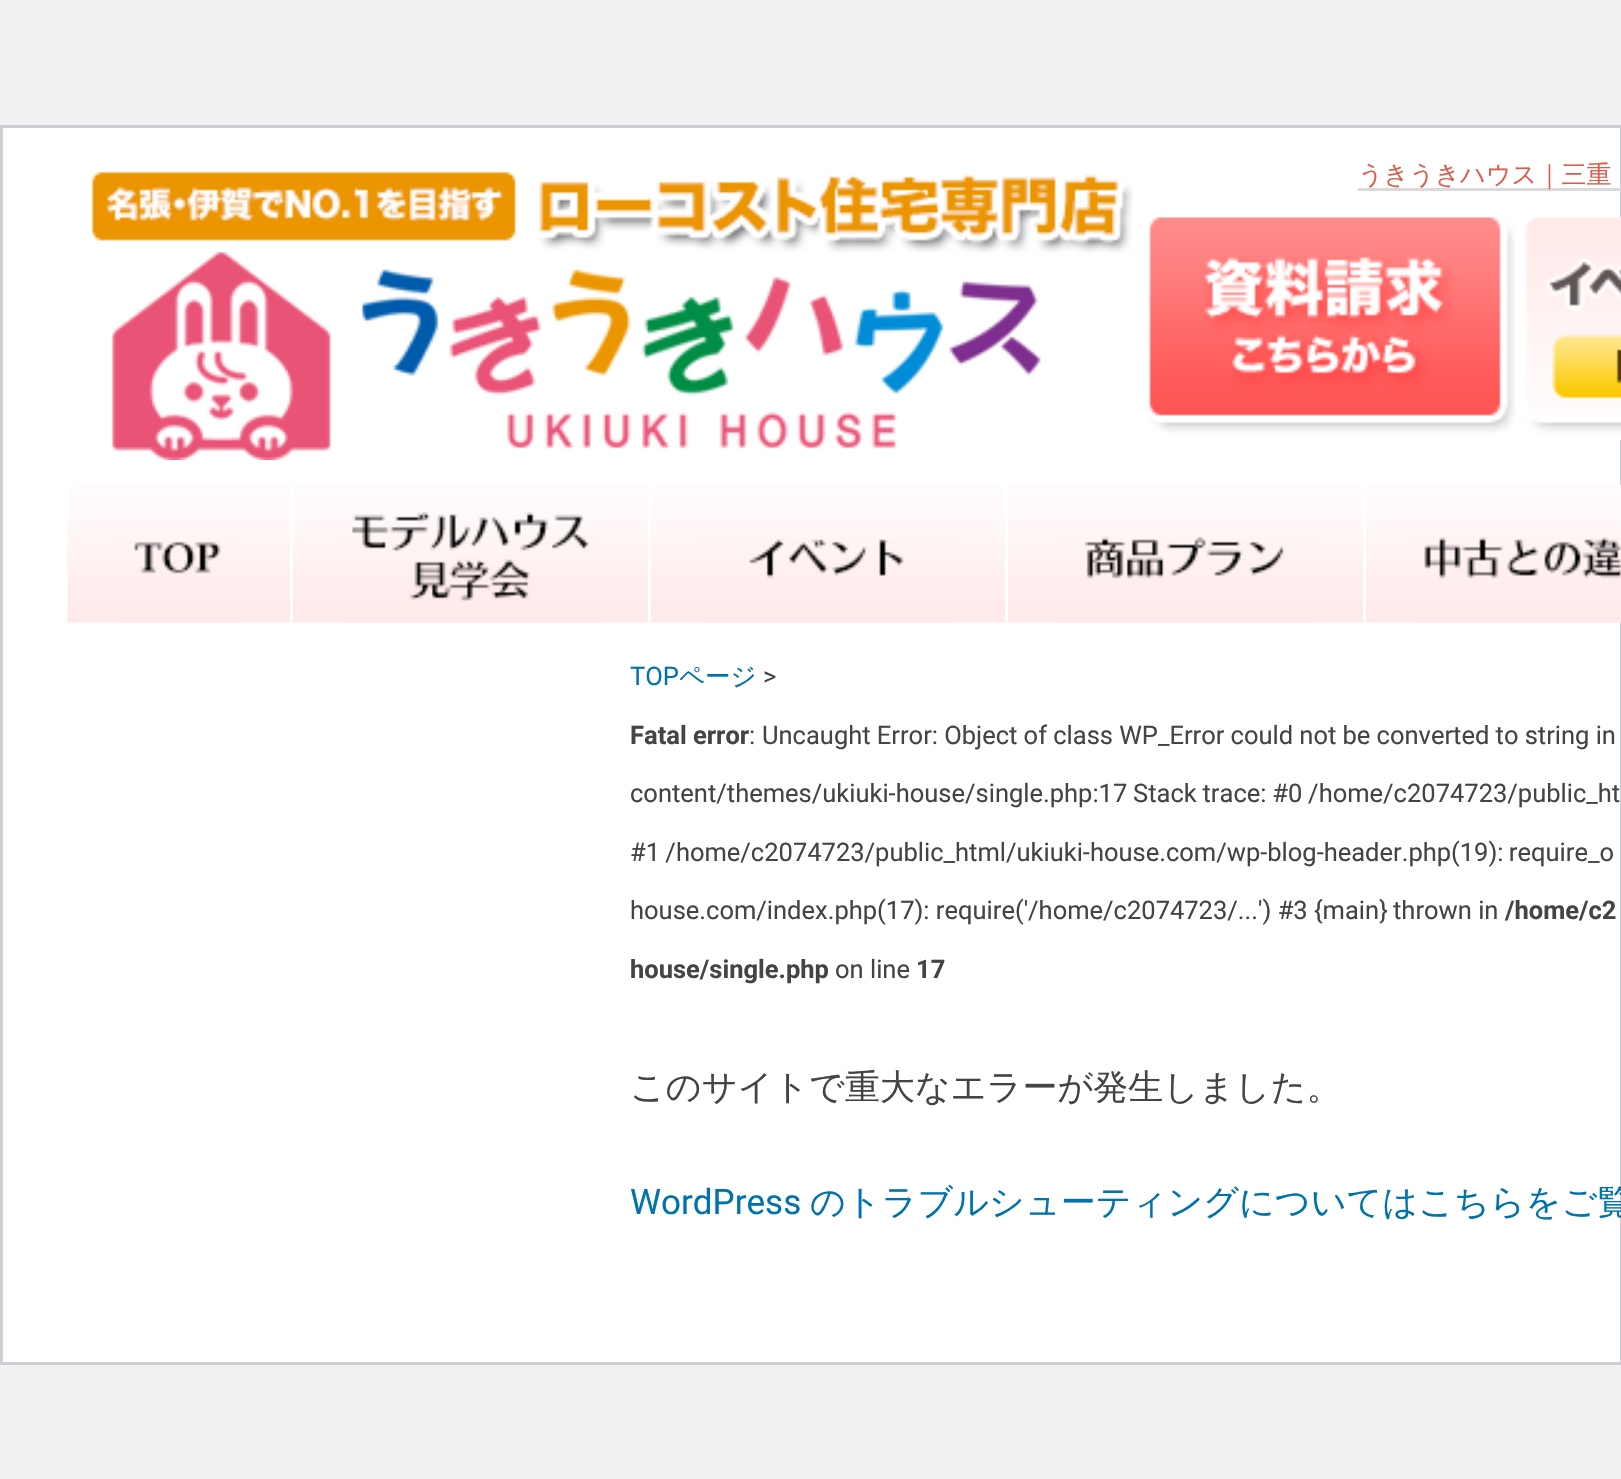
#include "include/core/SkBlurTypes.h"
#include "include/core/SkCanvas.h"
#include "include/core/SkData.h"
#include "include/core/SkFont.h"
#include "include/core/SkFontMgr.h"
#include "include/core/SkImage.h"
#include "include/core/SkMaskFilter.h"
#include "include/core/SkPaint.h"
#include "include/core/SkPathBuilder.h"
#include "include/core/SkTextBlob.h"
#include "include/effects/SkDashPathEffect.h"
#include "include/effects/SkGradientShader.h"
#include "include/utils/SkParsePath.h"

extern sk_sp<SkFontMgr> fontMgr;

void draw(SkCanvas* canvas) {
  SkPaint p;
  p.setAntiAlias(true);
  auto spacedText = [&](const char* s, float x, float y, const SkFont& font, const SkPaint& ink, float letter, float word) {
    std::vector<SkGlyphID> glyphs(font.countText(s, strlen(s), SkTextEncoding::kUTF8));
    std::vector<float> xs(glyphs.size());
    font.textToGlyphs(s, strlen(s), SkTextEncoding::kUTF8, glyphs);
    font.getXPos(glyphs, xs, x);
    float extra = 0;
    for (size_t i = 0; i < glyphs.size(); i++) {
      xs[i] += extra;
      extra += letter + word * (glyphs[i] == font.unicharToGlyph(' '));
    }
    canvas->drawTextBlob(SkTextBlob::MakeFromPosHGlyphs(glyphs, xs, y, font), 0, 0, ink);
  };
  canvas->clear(SkColorSetRGB(241, 241, 241));
  p.setColor(SK_ColorWHITE);
  canvas->drawRect(SkRect::MakeLTRB(1.5f, 126.5f, 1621.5f, 1363.5f), p);
  p.setStyle(SkPaint::kStroke_Style);
  p.setStrokeWidth(3);
  p.setColor(SkColorSetRGB(204, 208, 212));
  canvas->drawRect(SkRect::MakeLTRB(1.5f, 126.5f, 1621.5f, 1363.5f), p);
  canvas->drawImageRect(SkImages::DeferredFromEncodedData(SkData::MakeFromFileName("images/1.png")), SkRect::MakeLTRB(91, 171, 1133, 460), SkSamplingOptions());
  p.setStyle(SkPaint::kFill_Style);
  p.setColor(SkColorSetRGB(218, 218, 218));
  canvas->drawRect(SkRect::MakeLTRB(1358, 188, 1621, 191), p);
  canvas->drawImageRect(SkImages::DeferredFromEncodedData(SkData::MakeFromFileName("images/2.png")), SkRect::MakeLTRB(1149, 217, 1515, 433), SkSamplingOptions());
  canvas->drawImageRect(SkImages::DeferredFromEncodedData(SkData::MakeFromFileName("images/3.png")), SkRect::MakeLTRB(1525, 217, 1621, 440), SkSamplingOptions());
  canvas->drawImageRect(SkImages::DeferredFromEncodedData(SkData::MakeFromFileName("images/4.png")), SkRect::MakeLTRB(67, 485, 1621, 623), SkSamplingOptions());
  p.setColor(SK_ColorWHITE);
  canvas->drawRect(SkRect::MakeLTRB(290, 485, 293, 623), p);
  canvas->drawImageRect(SkImages::DeferredFromEncodedData(SkData::MakeFromFileName("images/5.png")), SkRect::MakeLTRB(115, 541, 242, 623), SkSamplingOptions());
  canvas->drawRect(SkRect::MakeLTRB(648, 485, 651, 623), p);
  canvas->drawImageRect(SkImages::DeferredFromEncodedData(SkData::MakeFromFileName("images/6.png")), SkRect::MakeLTRB(340, 512, 600, 623), SkSamplingOptions());
  canvas->drawRect(SkRect::MakeLTRB(1005, 485, 1008, 623), p);
  canvas->drawImageRect(SkImages::DeferredFromEncodedData(SkData::MakeFromFileName("images/7.png")), SkRect::MakeLTRB(698, 539, 957, 623), SkSamplingOptions());
  canvas->drawRect(SkRect::MakeLTRB(1363, 485, 1366, 623), p);
  canvas->drawImageRect(SkImages::DeferredFromEncodedData(SkData::MakeFromFileName("images/8.png")), SkRect::MakeLTRB(1055, 536, 1315, 623), SkSamplingOptions());
  canvas->drawImageRect(SkImages::DeferredFromEncodedData(SkData::MakeFromFileName("images/9.png")), SkRect::MakeLTRB(1413, 537, 1621, 623), SkSamplingOptions());
  SkFont font1(fontMgr->matchFamilyStyle("WenQuanYi Zen Hei", SkFontStyle(500, SkFontStyle::kNormal_Width, SkFontStyle::kUpright_Slant)), 25);
  font1.setSubpixel(true);
  p.setColor(SkColorSetRGB(218, 93, 77));
  canvas->drawString("うきうきハウス｜三重", 1358, 183, font1, p);
  SkFont font2(fontMgr->matchFamilyStyle("Roboto", SkFontStyle::Normal()), 25.5f);
  font2.setSubpixel(true);
  p.setColor(SkColorSetRGB(0, 115, 170));
  canvas->drawString("TOP", 630, 685, font2, p);
  SkFont font3(fontMgr->matchFamilyStyle("WenQuanYi Zen Hei", SkFontStyle(500, SkFontStyle::kNormal_Width, SkFontStyle::kUpright_Slant)), 25.5f);
  font3.setSubpixel(true);
  canvas->drawString("ページ", 679, 685, font3, p);
  p.setColor(SkColorSetRGB(68, 68, 68));
  canvas->drawString(">", 763, 685, font2, p);
  SkFont font4(fontMgr->matchFamilyStyle("Roboto", SkFontStyle::Bold()), 25.5f);
  font4.setSubpixel(true);
  canvas->drawString("Fatal error", 630, 744, font4, p);
  canvas->drawString(":", 749, 744, font2, p);
  spacedText("Uncaught Error: Object of class WP_Error could not be converted to string in", 762, 744, font2, p, 0, -0.1f);
  spacedText("content/themes/ukiuki-house/single.php:17 Stack trace: #0 /home/c2074723/public_ht", 630, 802, font2, p, 0, -0.5f);
  spacedText("#1 /home/c2074723/public_html/ukiuki-house.com/wp-blog-header.php(19): require_o", 630, 861, font2, p, 0, -1);
  canvas->drawString("house.com/index.php(17): require('/home/c2074723/...') #3 {main}", 630, 919, font2, p);
  canvas->drawString("thrown in", 1393, 919, font2, p);
  canvas->drawString("/home/c2", 1505, 919, font4, p);
  canvas->drawString("house/single.php", 630, 978, font4, p);
  canvas->drawString("on line", 835, 978, font2, p);
  canvas->drawString("17", 916, 978, font4, p);
  SkFont font5(fontMgr->matchFamilyStyle("WenQuanYi Zen Hei", SkFontStyle(500, SkFontStyle::kNormal_Width, SkFontStyle::kUpright_Slant)), 35);
  font5.setSubpixel(true);
  canvas->drawString("このサイトで重大なエラーが発生しました。", 630, 1099, font5, p);
  SkFont font6(fontMgr->matchFamilyStyle("Roboto", SkFontStyle::Normal()), 35);
  font6.setSubpixel(true);
  p.setColor(SkColorSetRGB(0, 115, 170));
  canvas->drawString("WordPress", 630, 1214, font6, p);
  canvas->drawString("のトラブルシューティングについてはこちらをご覧", 810, 1214, font5, p);
}
